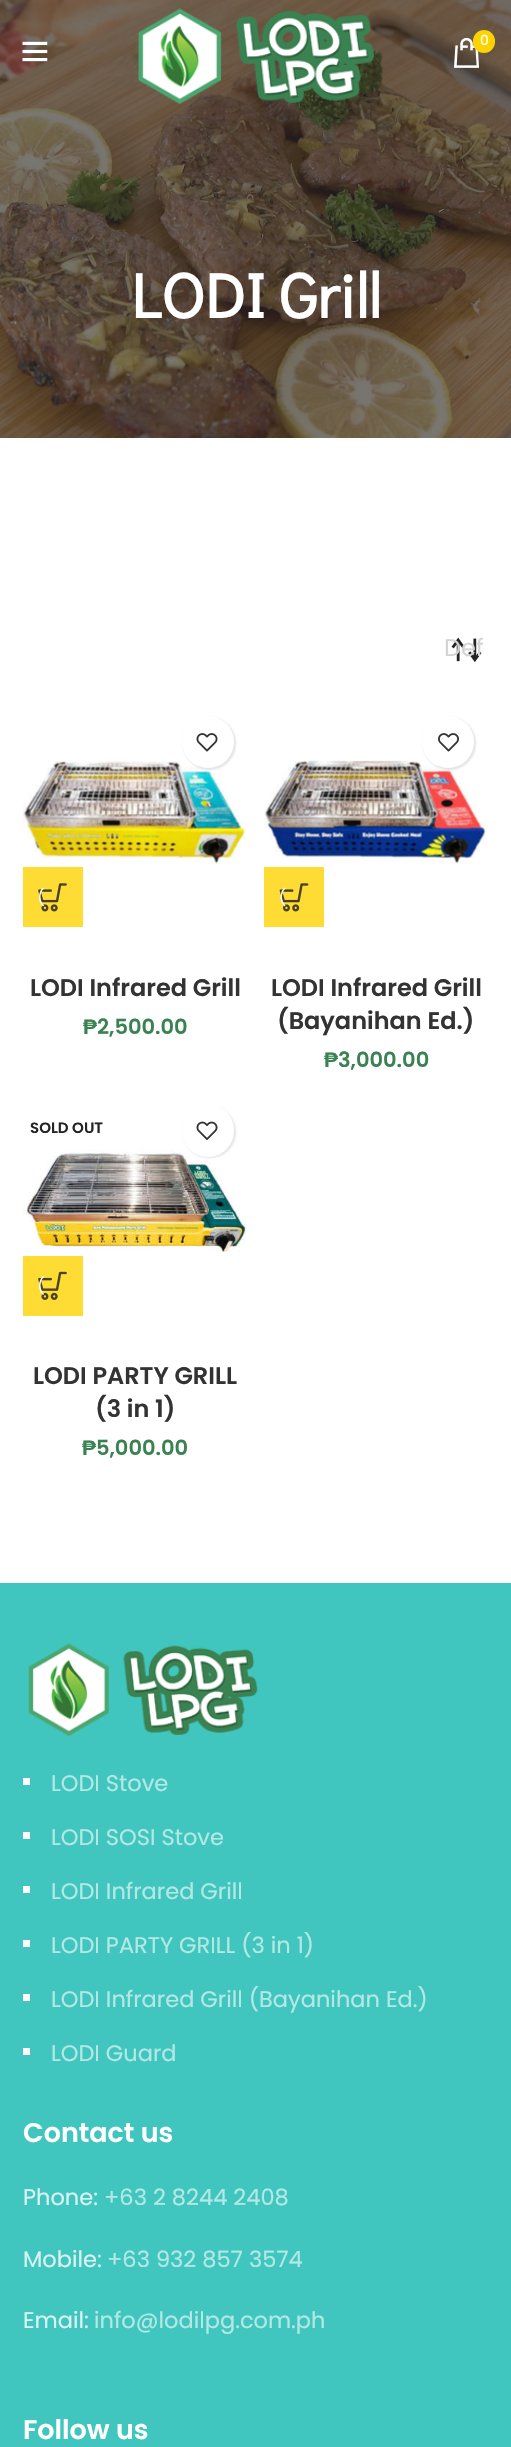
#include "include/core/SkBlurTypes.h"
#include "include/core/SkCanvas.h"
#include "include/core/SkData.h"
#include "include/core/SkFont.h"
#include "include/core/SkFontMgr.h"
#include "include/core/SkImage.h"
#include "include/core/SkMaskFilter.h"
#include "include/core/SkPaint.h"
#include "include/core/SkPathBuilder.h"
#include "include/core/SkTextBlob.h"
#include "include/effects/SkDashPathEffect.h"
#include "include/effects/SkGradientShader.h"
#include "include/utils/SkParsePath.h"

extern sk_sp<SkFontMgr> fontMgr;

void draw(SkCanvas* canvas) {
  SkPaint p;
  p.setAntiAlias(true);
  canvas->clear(SK_ColorWHITE);
  canvas->drawImageRect(SkImages::DeferredFromEncodedData(SkData::MakeFromFileName("images/4.png")), SkRect::MakeLTRB(0, 0, 511, 438), SkSamplingOptions());
  canvas->drawImageRect(SkImages::DeferredFromEncodedData(SkData::MakeFromFileName("images/1.png")), SkRect::MakeLTRB(138, 8, 375, 104), SkSamplingOptions());
  canvas->drawImageRect(SkImages::DeferredFromEncodedData(SkData::MakeFromFileName("images/2.png")), SkRect::MakeLTRB(454, 37, 479, 68), SkSamplingOptions());
  p.setColor(SkColorSetRGB(255, 211, 0));
  canvas->drawRoundRect(SkRect::MakeLTRB(473, 30, 495, 53), 11, 11, p);
  canvas->drawImageRect(SkImages::DeferredFromEncodedData(SkData::MakeFromFileName("images/3.png")), SkRect::MakeLTRB(22, 41, 48, 62), SkSamplingOptions());
  canvas->drawImageRect(SkImages::DeferredFromEncodedData(SkData::MakeFromFileName("images/5.png")), SkRect::MakeLTRB(451, 637, 482, 663), SkSamplingOptions());
  canvas->drawImageRect(SkImages::DeferredFromEncodedData(SkData::MakeFromFileName("images/7.png")), SkRect::MakeLTRB(22, 761, 246, 864), SkSamplingOptions());
  p.setColor(SkColorSetARGB(26, 0, 0, 0));
  p.setMaskFilter(SkMaskFilter::MakeBlur(kNormal_SkBlurStyle, 1));
  canvas->drawRoundRect(SkRect::MakeLTRB(183, 717, 236, 770), 26.5f, 26.5f, p);
  p.setMaskFilter(nullptr);
  p.setColor(SK_ColorWHITE);
  canvas->drawCircle(208, 742, 26, p);
  canvas->drawImageRect(SkImages::DeferredFromEncodedData(SkData::MakeFromFileName("images/6.png")), SkRect::MakeLTRB(196, 733, 218, 752), SkSamplingOptions());
  p.setColor(SkColorSetRGB(255, 220, 51));
  canvas->drawRect(SkRect::MakeLTRB(23, 867, 83, 927), p);
  canvas->drawImageRect(SkImages::DeferredFromEncodedData(SkData::MakeFromFileName("images/8.png")), SkRect::MakeLTRB(38, 883, 67, 912), SkSamplingOptions());
  p.setStyle(SkPaint::kStroke_Style);
  p.setStrokeWidth(1.5f);
  p.setColor(SK_ColorWHITE);
  canvas->drawPath(SkPathBuilder().moveTo(43.5f, 906).cubicTo(38.5f, 901, 38.5f, 893, 43.5f, 888).detach(), p);
  canvas->drawImageRect(SkImages::DeferredFromEncodedData(SkData::MakeFromFileName("images/10.png")), SkRect::MakeLTRB(264, 760, 487, 864), SkSamplingOptions());
  p.setStyle(SkPaint::kFill_Style);
  p.setColor(SkColorSetARGB(26, 0, 0, 0));
  p.setMaskFilter(SkMaskFilter::MakeBlur(kNormal_SkBlurStyle, 1));
  canvas->drawRoundRect(SkRect::MakeLTRB(423, 717, 476, 770), 26.5f, 26.5f, p);
  p.setMaskFilter(nullptr);
  p.setColor(SK_ColorWHITE);
  canvas->drawCircle(448, 742, 26, p);
  canvas->drawImageRect(SkImages::DeferredFromEncodedData(SkData::MakeFromFileName("images/9.png")), SkRect::MakeLTRB(438, 733, 459, 752), SkSamplingOptions());
  p.setColor(SkColorSetRGB(255, 220, 51));
  canvas->drawRect(SkRect::MakeLTRB(264, 867, 324, 927), p);
  canvas->drawImageRect(SkImages::DeferredFromEncodedData(SkData::MakeFromFileName("images/11.png")), SkRect::MakeLTRB(279, 883, 309, 912), SkSamplingOptions());
  p.setStyle(SkPaint::kStroke_Style);
  p.setColor(SK_ColorWHITE);
  canvas->drawPath(SkPathBuilder().moveTo(285, 906).cubicTo(280, 901, 280, 893, 285, 888).detach(), p);
  canvas->drawImageRect(SkImages::DeferredFromEncodedData(SkData::MakeFromFileName("images/12.png")), SkRect::MakeLTRB(23, 1149, 246, 1252), SkSamplingOptions());
  p.setStyle(SkPaint::kFill_Style);
  p.setColor(SkColorSetARGB(26, 0, 0, 0));
  p.setMaskFilter(SkMaskFilter::MakeBlur(kNormal_SkBlurStyle, 1));
  canvas->drawRoundRect(SkRect::MakeLTRB(183, 1106, 236, 1158), 26, 26, p);
  p.setMaskFilter(nullptr);
  p.setColor(SK_ColorWHITE);
  canvas->drawRoundRect(SkRect::MakeLTRB(182, 1104, 234, 1157), 26, 26, p);
  canvas->drawImageRect(SkImages::DeferredFromEncodedData(SkData::MakeFromFileName("images/13.png")), SkRect::MakeLTRB(196, 1121, 218, 1140), SkSamplingOptions());
  p.setColor(SkColorSetRGB(255, 220, 51));
  canvas->drawRect(SkRect::MakeLTRB(23, 1256, 83, 1316), p);
  canvas->drawImageRect(SkImages::DeferredFromEncodedData(SkData::MakeFromFileName("images/14.png")), SkRect::MakeLTRB(38, 1271, 67, 1300), SkSamplingOptions());
  p.setStyle(SkPaint::kStroke_Style);
  p.setColor(SK_ColorWHITE);
  canvas->drawPath(SkPathBuilder().moveTo(43.5f, 1294.5f).cubicTo(38.5f, 1289.5f, 38.5f, 1281.5f, 43.5f, 1276.5f).detach(), p);
  p.setStyle(SkPaint::kFill_Style);
  p.setColor(SkColorSetRGB(64, 198, 191));
  canvas->drawRect(SkRect::MakeLTRB(0, 1583, 511, 2447), p);
  canvas->drawImageRect(SkImages::DeferredFromEncodedData(SkData::MakeFromFileName("images/15.png")), SkRect::MakeLTRB(28, 1643, 258, 1736), SkSamplingOptions());
  p.setColor(SK_ColorWHITE);
  canvas->drawRect(SkRect::MakeLTRB(23, 1778, 30, 1785), p);
  canvas->drawRect(SkRect::MakeLTRB(23, 1832, 30, 1839), p);
  canvas->drawRect(SkRect::MakeLTRB(23, 1886, 30, 1893), p);
  canvas->drawRect(SkRect::MakeLTRB(23, 1940, 30, 1947), p);
  canvas->drawRect(SkRect::MakeLTRB(23, 1994, 30, 2001), p);
  canvas->drawRect(SkRect::MakeLTRB(23, 2048, 30, 2055), p);
  SkFont font1(fontMgr->matchFamilyStyle("Poppins", SkFontStyle::Normal()), 14);
  font1.setSubpixel(true);
  canvas->drawString("0", 480, 45, font1, p);
  SkFont font2(fontMgr->matchFamilyStyle("Didact Gothic", SkFontStyle::Bold()), 63);
  font2.setSubpixel(true);
  canvas->drawString("LODI Grill", 131, 318, font2, p);
  SkFont font3(fontMgr->matchFamilyStyle("Poppins", SkFontStyle::Normal()), 24);
  font3.setSubpixel(true);
  p.setColor(SkColorSetRGB(212, 212, 212));
  canvas->drawString("Def", 444, 656, font3, p);
  SkFont font4(fontMgr->matchFamilyStyle("Poppins", SkFontStyle(600, SkFontStyle::kNormal_Width, SkFontStyle::kUpright_Slant)), 24);
  font4.setSubpixel(true);
  p.setColor(SkColorSetRGB(51, 51, 51));
  canvas->drawString("LODI Infrared Grill", 30, 996, font4, p);
  SkFont font5(fontMgr->matchFamilyStyle("Liberation Sans", SkFontStyle::Bold()), 21);
  font5.setSubpixel(true);
  p.setColor(SkColorSetRGB(59, 130, 82));
  canvas->drawString("₱", 83, 1034, font5, p);
  SkFont font6(fontMgr->matchFamilyStyle("Poppins", SkFontStyle(600, SkFontStyle::kNormal_Width, SkFontStyle::kUpright_Slant)), 21);
  font6.setSubpixel(true);
  canvas->drawString("2,500.00", 97, 1034, font6, p);
  p.setColor(SkColorSetRGB(51, 51, 51));
  canvas->drawString("LODI Infrared Grill", 271, 996, font4, p);
  canvas->drawString("(Bayanihan Ed.)", 277, 1029, font4, p);
  p.setColor(SkColorSetRGB(59, 130, 82));
  canvas->drawString("₱", 324, 1067, font5, p);
  canvas->drawString("3,000.00", 338, 1067, font6, p);
  SkFont font7(fontMgr->matchFamilyStyle("Poppins", SkFontStyle(600, SkFontStyle::kNormal_Width, SkFontStyle::kUpright_Slant)), 15);
  font7.setSubpixel(true);
  p.setColor(SkColorSetRGB(36, 36, 36));
  canvas->drawString("SOLD OUT", 30, 1133, font7, p);
  p.setColor(SkColorSetRGB(51, 51, 51));
  canvas->drawString("LODI PARTY GRILL", 33, 1384, font4, p);
  canvas->drawString("(3 in 1)", 95, 1417, font4, p);
  p.setColor(SkColorSetRGB(59, 130, 82));
  canvas->drawString("₱", 82, 1455, font5, p);
  canvas->drawString("5,000.00", 96, 1455, font6, p);
  SkFont font8(fontMgr->matchFamilyStyle("Poppins", SkFontStyle::Normal()), 22.5f);
  font8.setSubpixel(true);
  p.setColor(SkColorSetRGB(179, 232, 229));
  canvas->drawString("LODI Stove", 51, 1791, font8, p);
  canvas->drawString("LODI SOSI Stove", 51, 1845, font8, p);
  canvas->drawString("LODI Infrared Grill", 51, 1899, font8, p);
  canvas->drawString("LODI PARTY GRILL (3 in 1)", 51, 1953, font8, p);
  canvas->drawString("LODI Infrared Grill (Bayanihan Ed.)", 51, 2007, font8, p);
  canvas->drawString("LODI Guard", 51, 2061, font8, p);
  SkFont font9(fontMgr->matchFamilyStyle("Poppins", SkFontStyle(600, SkFontStyle::kNormal_Width, SkFontStyle::kUpright_Slant)), 27);
  font9.setSubpixel(true);
  p.setColor(SK_ColorWHITE);
  canvas->drawString("Contact us", 23, 2142, font9, p);
  p.setColor(SkColorSetRGB(217, 244, 242));
  canvas->drawString("Phone:", 23, 2205, font8, p);
  p.setColor(SkColorSetRGB(179, 232, 229));
  canvas->drawString("+63 2 8244 2408", 104, 2205, font8, p);
  p.setColor(SkColorSetRGB(217, 244, 242));
  canvas->drawString("Mobile:", 23, 2267, font8, p);
  p.setColor(SkColorSetRGB(179, 232, 229));
  canvas->drawString("+63 932 857 3574", 107, 2267, font8, p);
  p.setColor(SkColorSetRGB(217, 244, 242));
  canvas->drawString("Email:", 23, 2328, font8, p);
  p.setColor(SkColorSetRGB(179, 232, 229));
  canvas->drawString("info@lodilpg.com.ph", 94, 2328, font8, p);
  p.setColor(SK_ColorWHITE);
  canvas->drawString("Follow us", 23, 2439, font9, p);
}
